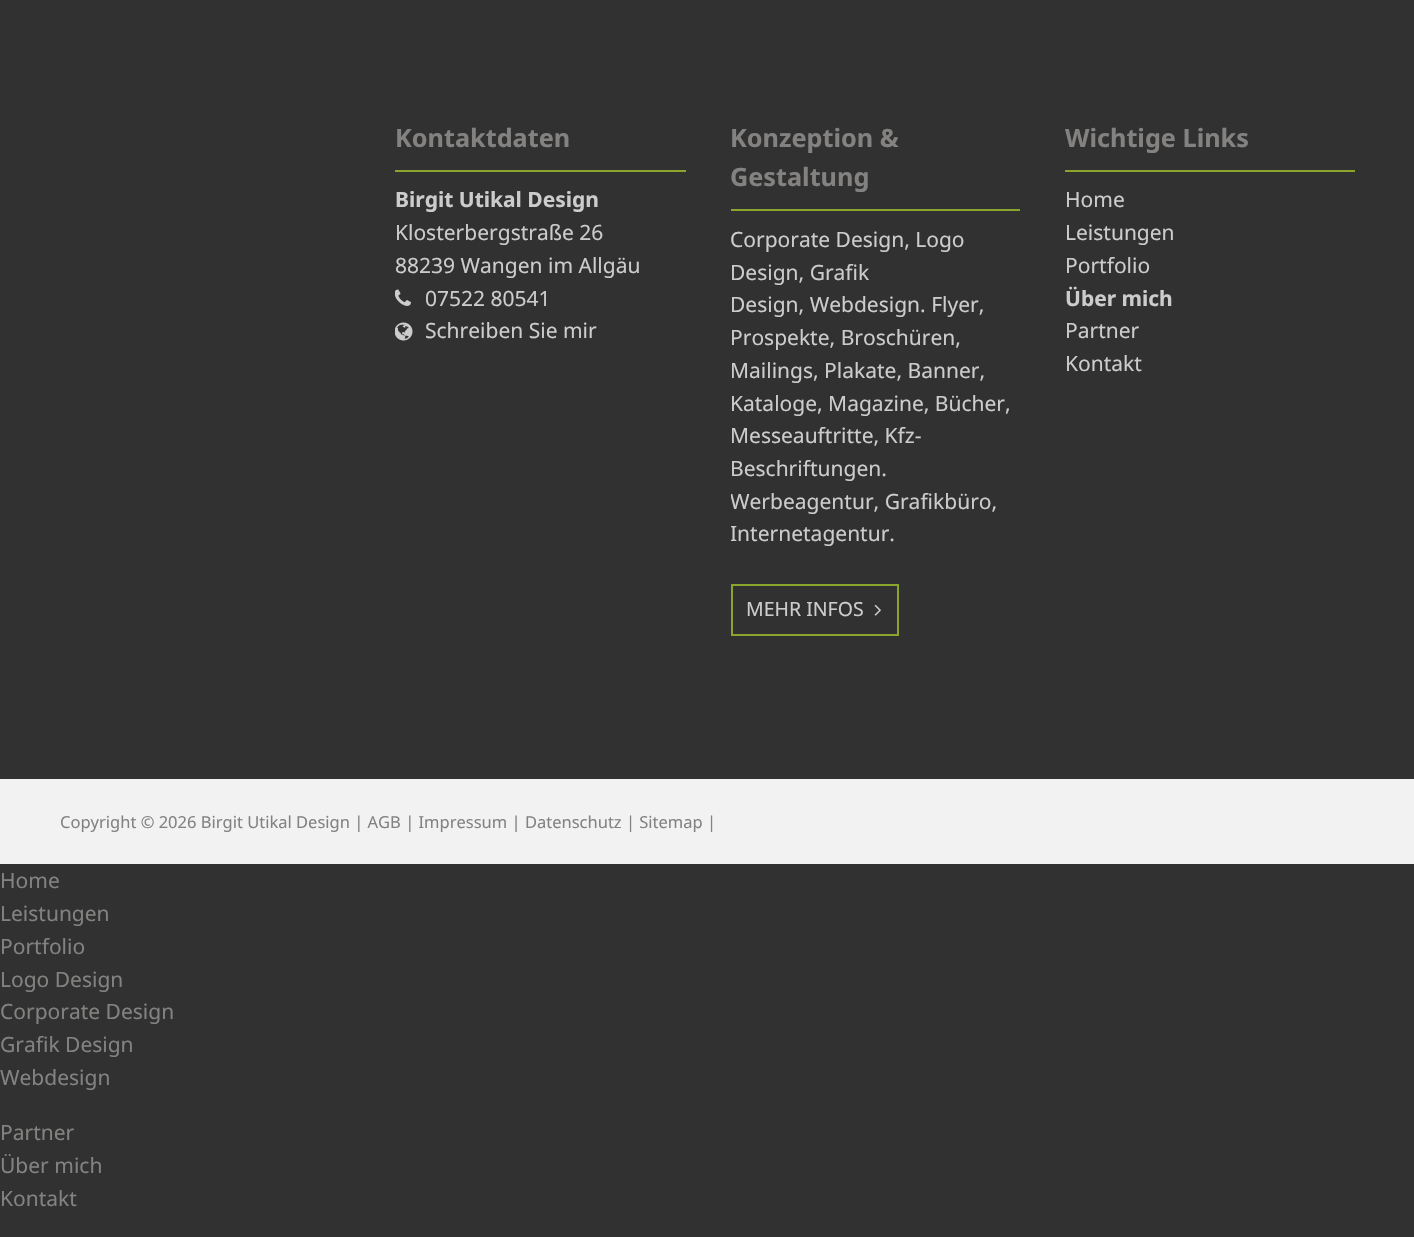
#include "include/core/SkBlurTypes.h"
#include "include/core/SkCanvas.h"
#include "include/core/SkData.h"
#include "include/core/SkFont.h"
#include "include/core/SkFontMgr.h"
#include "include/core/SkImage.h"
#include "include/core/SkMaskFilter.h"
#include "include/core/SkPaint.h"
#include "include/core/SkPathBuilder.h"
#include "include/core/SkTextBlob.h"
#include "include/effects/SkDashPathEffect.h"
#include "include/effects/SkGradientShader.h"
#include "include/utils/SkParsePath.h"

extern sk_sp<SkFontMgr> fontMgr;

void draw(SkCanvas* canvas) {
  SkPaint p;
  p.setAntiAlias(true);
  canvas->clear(SkColorSetRGB(49, 49, 49));
  p.setColor(SkColorSetRGB(139, 164, 43));
  canvas->drawRect(SkRect::MakeLTRB(395, 170, 686, 172), p);
  canvas->drawImageRect(SkImages::DeferredFromEncodedData(SkData::MakeFromFileName("images/1.png")), SkRect::MakeLTRB(395, 289, 411, 306), SkSamplingOptions());
  canvas->drawImageRect(SkImages::DeferredFromEncodedData(SkData::MakeFromFileName("images/2.png")), SkRect::MakeLTRB(395, 322, 413, 341), SkSamplingOptions());
  canvas->drawRect(SkRect::MakeLTRB(731, 209, 1020, 211), p);
  p.setStyle(SkPaint::kStroke_Style);
  p.setStrokeWidth(2);
  canvas->drawRect(SkRect::MakeLTRB(732, 585, 898, 635), p);
  canvas->drawImageRect(SkImages::DeferredFromEncodedData(SkData::MakeFromFileName("images/3.png")), SkRect::MakeLTRB(874, 604, 881, 616), SkSamplingOptions());
  p.setStyle(SkPaint::kFill_Style);
  canvas->drawRect(SkRect::MakeLTRB(1065, 170, 1355, 172), p);
  p.setColor(SkColorSetRGB(242, 242, 242));
  canvas->drawRect(SkRect::MakeLTRB(0, 779, 1414, 864), p);
  SkFont font1(fontMgr->matchFamilyStyle("Noto Sans", SkFontStyle::Bold()), 25.25f);
  font1.setSubpixel(true);
  p.setColor(SkColorSetRGB(131, 130, 129));
  canvas->drawString("Kontaktdaten", 395, 147, font1, p);
  SkFont font2(fontMgr->matchFamilyStyle("Noto Sans", SkFontStyle::Bold()), 21);
  font2.setSubpixel(true);
  p.setColor(SkColorSetRGB(204, 204, 204));
  canvas->drawString("Birgit Utikal Design", 395, 207, font2, p);
  SkFont font3(fontMgr->matchFamilyStyle("Noto Sans", SkFontStyle::Normal()), 21);
  font3.setSubpixel(true);
  canvas->drawString("Klosterbergstraße 26", 395, 240, font3, p);
  canvas->drawString("88239 Wangen im Allgäu", 395, 273, font3, p);
  canvas->drawString("07522 80541", 425, 306, font3, p);
  canvas->drawString("Schreiben Sie mir", 425, 338, font3, p);
  p.setColor(SkColorSetRGB(131, 130, 129));
  canvas->drawString("Konzeption &", 730, 147, font1, p);
  canvas->drawString("Gestaltung", 730, 186, font1, p);
  p.setColor(SkColorSetRGB(204, 204, 204));
  canvas->drawString("Corporate Design, Logo", 730, 247, font3, p);
  canvas->drawString("Design, Grafik", 730, 280, font3, p);
  canvas->drawString("Design, Webdesign. Flyer,", 730, 312, font3, p);
  canvas->drawString("Prospekte, Broschüren,", 730, 345, font3, p);
  canvas->drawString("Mailings, Plakate, Banner,", 730, 378, font3, p);
  canvas->drawString("Kataloge, Magazine, Bücher,", 730, 411, font3, p);
  canvas->drawString("Messeauftritte, Kfz-", 730, 443, font3, p);
  canvas->drawString("Beschriftungen.", 730, 476, font3, p);
  canvas->save();
  canvas->clipRect(SkRect::MakeLTRB(731, 119, 1020, 644));
  canvas->drawString("Werbeagentur, Grafikbüro,", 730, 509, font3, p);
  canvas->drawString("Internetagentur.", 730, 541, font3, p);
  canvas->restore();
  SkFont font4(fontMgr->matchFamilyStyle("Noto Sans", SkFontStyle::Normal()), 19.5f);
  font4.setSubpixel(true);
  canvas->drawString("MEHR INFOS", 746, 616, font4, p);
  p.setColor(SkColorSetRGB(131, 130, 129));
  canvas->drawString("Wichtige Links", 1065, 147, font1, p);
  p.setColor(SkColorSetRGB(204, 204, 204));
  canvas->drawString("Home", 1065, 207, font3, p);
  canvas->drawString("Leistungen", 1065, 240, font3, p);
  canvas->drawString("Portfolio", 1065, 273, font3, p);
  canvas->drawString("Über mich", 1065, 306, font2, p);
  canvas->drawString("Partner", 1065, 338, font3, p);
  canvas->drawString("Kontakt", 1065, 371, font3, p);
  SkFont font5(fontMgr->matchFamilyStyle("Noto Sans", SkFontStyle::Normal()), 16.5f);
  font5.setSubpixel(true);
  p.setColor(SkColorSetRGB(131, 130, 129));
  canvas->drawString("Copyright © 2026 Birgit Utikal Design | AGB | Impressum | Datenschutz | Sitemap |", 60, 828, font5, p);
  canvas->drawString("Home", 0, 888, font3, p);
  canvas->drawString("Leistungen", 0, 921, font3, p);
  canvas->drawString("Portfolio", 0, 954, font3, p);
  canvas->drawString("Logo Design", 0, 987, font3, p);
  canvas->drawString("Corporate Design", 0, 1019, font3, p);
  canvas->drawString("Grafik Design", 0, 1052, font3, p);
  canvas->drawString("Webdesign", 0, 1085, font3, p);
  canvas->drawString("Partner", 0, 1140, font3, p);
  canvas->drawString("Über mich", 0, 1173, font3, p);
  canvas->drawString("Kontakt", 0, 1206, font3, p);
}
